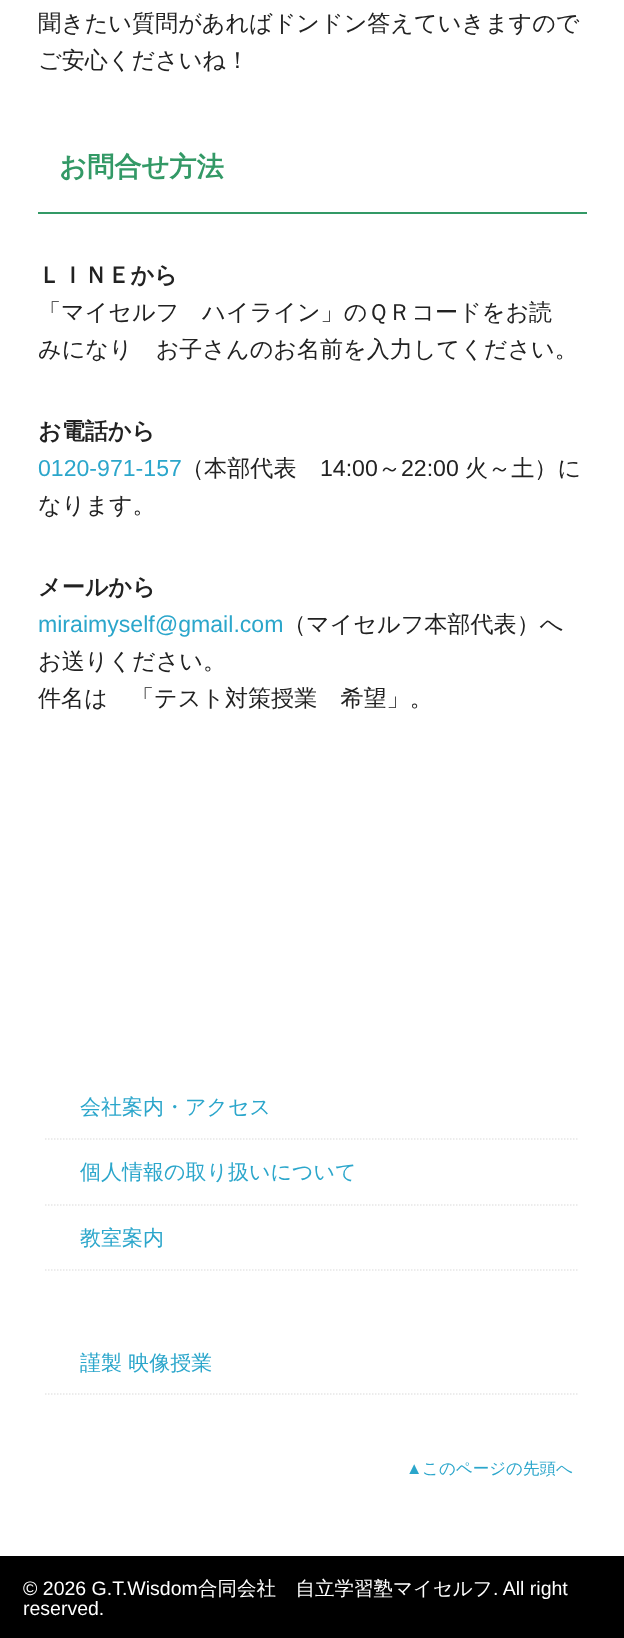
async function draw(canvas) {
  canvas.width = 624;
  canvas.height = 1638;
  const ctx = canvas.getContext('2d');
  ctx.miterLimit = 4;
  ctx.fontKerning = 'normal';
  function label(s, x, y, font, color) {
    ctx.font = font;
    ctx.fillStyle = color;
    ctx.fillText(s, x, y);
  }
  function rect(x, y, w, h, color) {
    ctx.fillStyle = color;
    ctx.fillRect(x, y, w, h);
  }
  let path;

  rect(0, 0, 624, 1638, '#fff');
  label('聞きたい質問があればドンドン答えていきますので', 38, 31, '500 23.1px WenQuanYi Zen Hei', '#222');
  label('ご安心くださいね！', 38, 68, '500 23.1px WenQuanYi Zen Hei', '#222');
  rect(38, 212, 549, 2, '#396');
  label('お問合せ方法', 59, 176, 'bold 27.25px WenQuanYi Zen Hei', '#396');
  label('ＬＩＮＥから', 38, 283, 'bold 23.1px WenQuanYi Zen Hei', '#222');
  label('「マイセルフ　ハイライン」のＱＲコードをお読', 38, 320, '500 23.1px WenQuanYi Zen Hei', '#222');
  label('みになり　お子さんのお名前を入力してください。', 38, 357, '500 23.1px WenQuanYi Zen Hei', '#222');
  label('お電話から', 38, 439, 'bold 23.1px WenQuanYi Zen Hei', '#222');
  label('0120-971-157', 38, 476, '23.1px Liberation Sans', '#2ba6cb');
  label('（本部代表', 181, 476, '500 23.1px WenQuanYi Zen Hei', '#222');
  label('14:00', 320, 476, '23.1px Liberation Sans', '#222');
  label('～', 378, 476, '500 23.1px WenQuanYi Zen Hei', '#222');
  label('22:00', 401, 476, '23.1px Liberation Sans', '#222');
  label('火～土）に', 465, 476, '500 23.1px WenQuanYi Zen Hei', '#222');
  label('なります。', 38, 513, '500 23.1px WenQuanYi Zen Hei', '#222');
  label('メールから', 38, 595, 'bold 23.1px WenQuanYi Zen Hei', '#222');
  label('miraimyself@gmail.com', 38, 632, '23.1px Liberation Sans', '#2ba6cb');
  label('（マイセルフ本部代表）へ', 283, 632, '500 23.1px WenQuanYi Zen Hei', '#222');
  label('お送りください。', 38, 669, '500 23.1px WenQuanYi Zen Hei', '#222');
  label('件名は　「テスト対策授業　希望」。', 38, 706, '500 23.1px WenQuanYi Zen Hei', '#222');
  path = new Path2D('M45 1139H579');
  ctx.strokeStyle = '#e6e6e6';
  ctx.lineWidth = 1.5;
  ctx.setLineDash([1.5, 1.5]);
  ctx.stroke(path);
  label('会社案内・アクセス', 80, 1114, '500 21px WenQuanYi Zen Hei', '#2ba6cb');
  path = new Path2D('M45 1205H579');
  ctx.stroke(path);
  label('個人情報の取り扱いについて', 80, 1179, '500 21px WenQuanYi Zen Hei', '#2ba6cb');
  path = new Path2D('M45 1270H579');
  ctx.stroke(path);
  label('教室案内', 80, 1245, '500 21px WenQuanYi Zen Hei', '#2ba6cb');
  path = new Path2D('M45 1394H579');
  ctx.stroke(path);
  label('謹製 映像授業', 80, 1370, '500 21px WenQuanYi Zen Hei', '#2ba6cb');
  label('▲', 406, 1474, '16.5px Liberation Sans', '#2ba6cb');
  label('このページの先頭へ', 422, 1474, '500 16.5px WenQuanYi Zen Hei', '#2ba6cb');
  rect(0, 1556, 624, 82, '#000');
  label('© 2026 G.T.Wisdom', 23, 1595, '19.5px Liberation Sans', '#fff');
  label('合同会社　自立学習塾マイセルフ', 198, 1595, '500 19.5px WenQuanYi Zen Hei', '#fff');
  label('. All right', 493, 1595, '19.5px Liberation Sans', '#fff');
  label('reserved.', 23, 1615, '19.5px Liberation Sans', '#fff');
}

draw(document.querySelector('canvas'));
